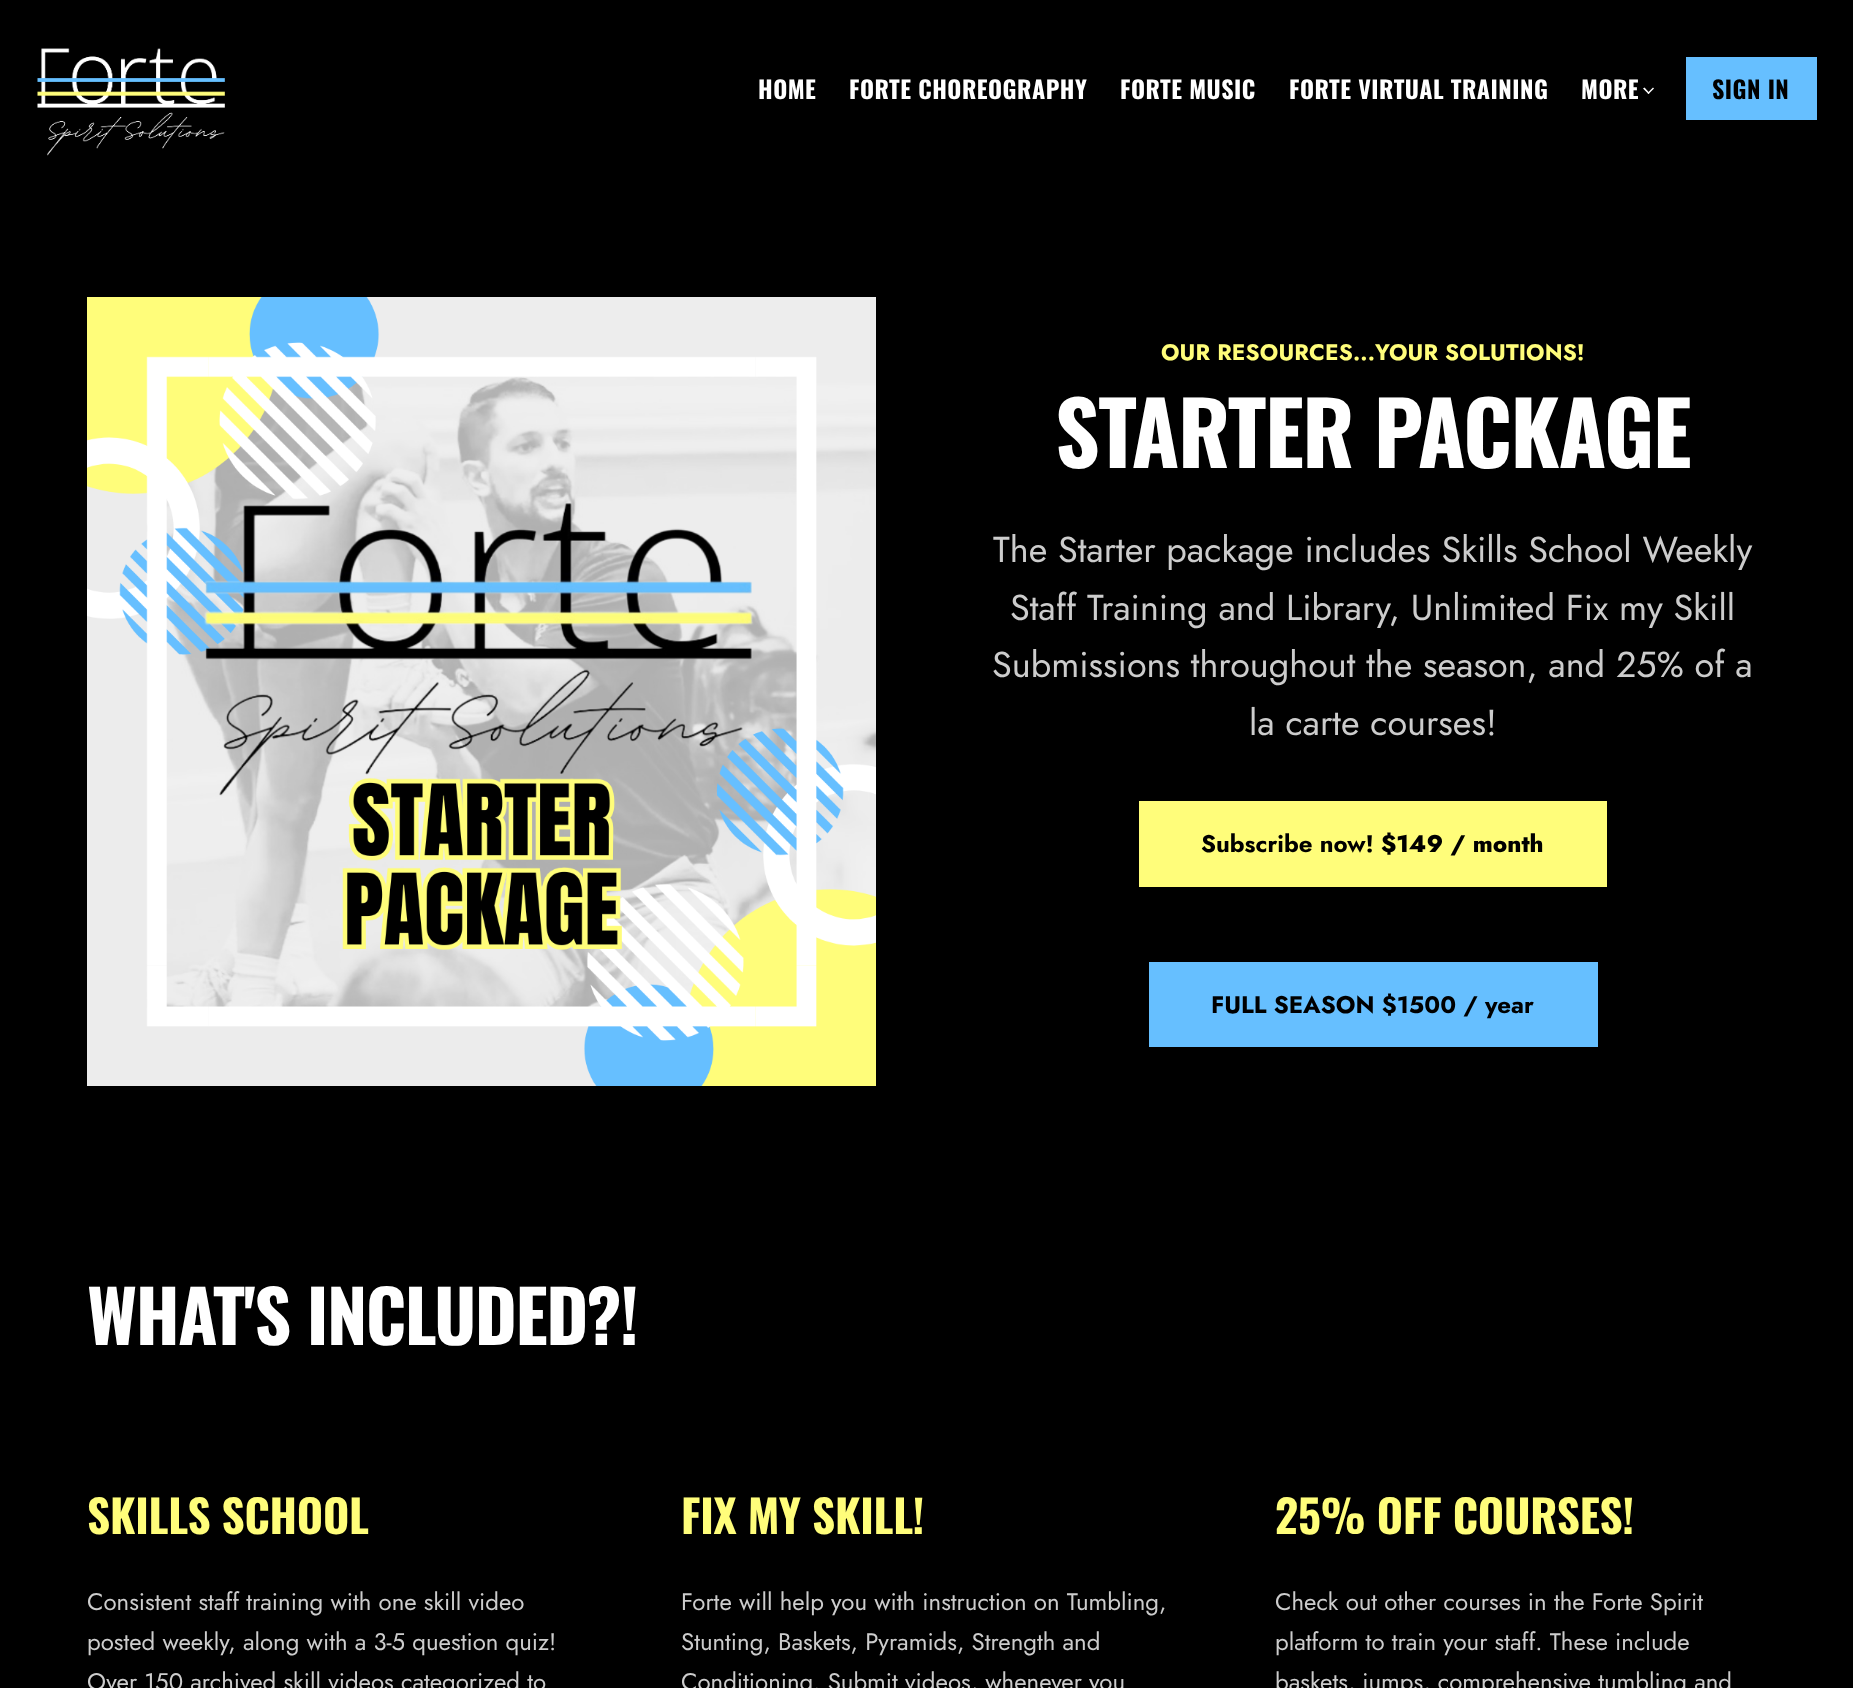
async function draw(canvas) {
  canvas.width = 1853;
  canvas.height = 1688;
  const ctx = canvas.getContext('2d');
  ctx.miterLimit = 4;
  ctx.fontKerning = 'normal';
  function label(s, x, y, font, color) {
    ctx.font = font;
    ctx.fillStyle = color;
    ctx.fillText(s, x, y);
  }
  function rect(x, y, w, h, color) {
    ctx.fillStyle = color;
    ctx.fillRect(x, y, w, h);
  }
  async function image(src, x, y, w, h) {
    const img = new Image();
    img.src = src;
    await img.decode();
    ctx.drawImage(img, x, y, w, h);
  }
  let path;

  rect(0, 0, 1853, 1688, '#000');
  await image('assets/img1.png', 37, 48, 188, 108);
  ctx.letterSpacing = '0.5px';
  label('HOME', 758, 99, 'bold 24px Oswald', '#fff');
  label('FORTE CHOREOGRAPHY', 849, 99, 'bold 24px Oswald', '#fff');
  label('FORTE MUSIC', 1120, 99, 'bold 24px Oswald', '#fff');
  label('FORTE VIRTUAL TRAINING', 1289, 99, 'bold 24px Oswald', '#fff');
  label('MORE', 1581, 99, 'bold 24px Oswald', '#fff');
  path = new Path2D('M1654 88.5L1648.5 94L1647.5 93L1653 87.5Z');
  ctx.fill(path);
  path = new Path2D('M1649.5 93L1648.5 94L1643 88.5L1644.5 87.5Z');
  ctx.fill(path);
  rect(1686, 57, 131, 63, '#66bfff');
  label('SIGN IN', 1712, 99, 'bold 24px Oswald', '#000');
  await image('assets/img2.png', 87, 297, 789, 789);
  ctx.letterSpacing = '0.15px';
  label('OUR RESOURCES...YOUR SOLUTIONS!', 1161, 360, 'bold 22.5px Jost', '#fffd7a');
  ctx.letterSpacing = '-1.5px';
  label('STARTER PACKAGE', 1055, 468, 'bold 87px Oswald', '#fff');
  ctx.letterSpacing = '0px';
  label('The Starter package includes Skills School Weekly', 993, 562, '36px Jost', '#ccc');
  label('Staff Training and Library, Unlimited Fix my Skill', 1010, 620, '36px Jost', '#ccc');
  label('Submissions throughout the season, and 25% of a', 992, 677, '36px Jost', '#ccc');
  label('la carte courses!', 1249, 735, '36px Jost', '#ccc');
  rect(1139, 801, 468, 86, '#fffd7a');
  label('Subscribe now!', 1201, 852, 'bold 24px Jost', '#000');
  label('$149 / month', 1381, 852, '800 24px Jost', '#000');
  rect(1149, 962, 449, 85, '#66bfff');
  label('FULL SEASON $1500 / year', 1211, 1013, 'bold 24px Jost', '#000');
  ctx.letterSpacing = '-1.5px';
  label('WHAT\'S INCLUDED?!', 87, 1345, 'bold 72px Oswald', '#fff');
  ctx.letterSpacing = '-0.25px';
  label('SKILLS SCHOOL', 87, 1534, 'bold 45px Oswald', '#fffd7a');
  ctx.letterSpacing = '0px';
  label('Consistent staff training with one skill video', 87, 1610, '24px Jost', '#ccc');
  label('posted weekly, along with a 3-5 question quiz!', 87, 1650, '24px Jost', '#ccc');
  label('Over 150 archived skill videos categorized to', 87, 1690, '24px Jost', '#ccc');
  ctx.letterSpacing = '-0.25px';
  label('FIX MY SKILL!', 681, 1534, 'bold 45px Oswald', '#fffd7a');
  ctx.letterSpacing = '0px';
  label('Forte will help you with instruction on Tumbling,', 681, 1610, '24px Jost', '#ccc');
  label('Stunting, Baskets, Pyramids, Strength and', 681, 1650, '24px Jost', '#ccc');
  label('Conditioning. Submit videos, whenever you', 681, 1690, '24px Jost', '#ccc');
  ctx.letterSpacing = '-0.25px';
  label('25% OFF COURSES!', 1275, 1534, 'bold 45px Oswald', '#fffd7a');
  ctx.letterSpacing = '0px';
  label('Check out other courses in the Forte Spirit', 1275, 1610, '24px Jost', '#ccc');
  label('platform to train your staff. These include', 1275, 1650, '24px Jost', '#ccc');
  label('baskets, jumps, comprehensive tumbling and', 1275, 1690, '24px Jost', '#ccc');
}

draw(document.querySelector('canvas'));
